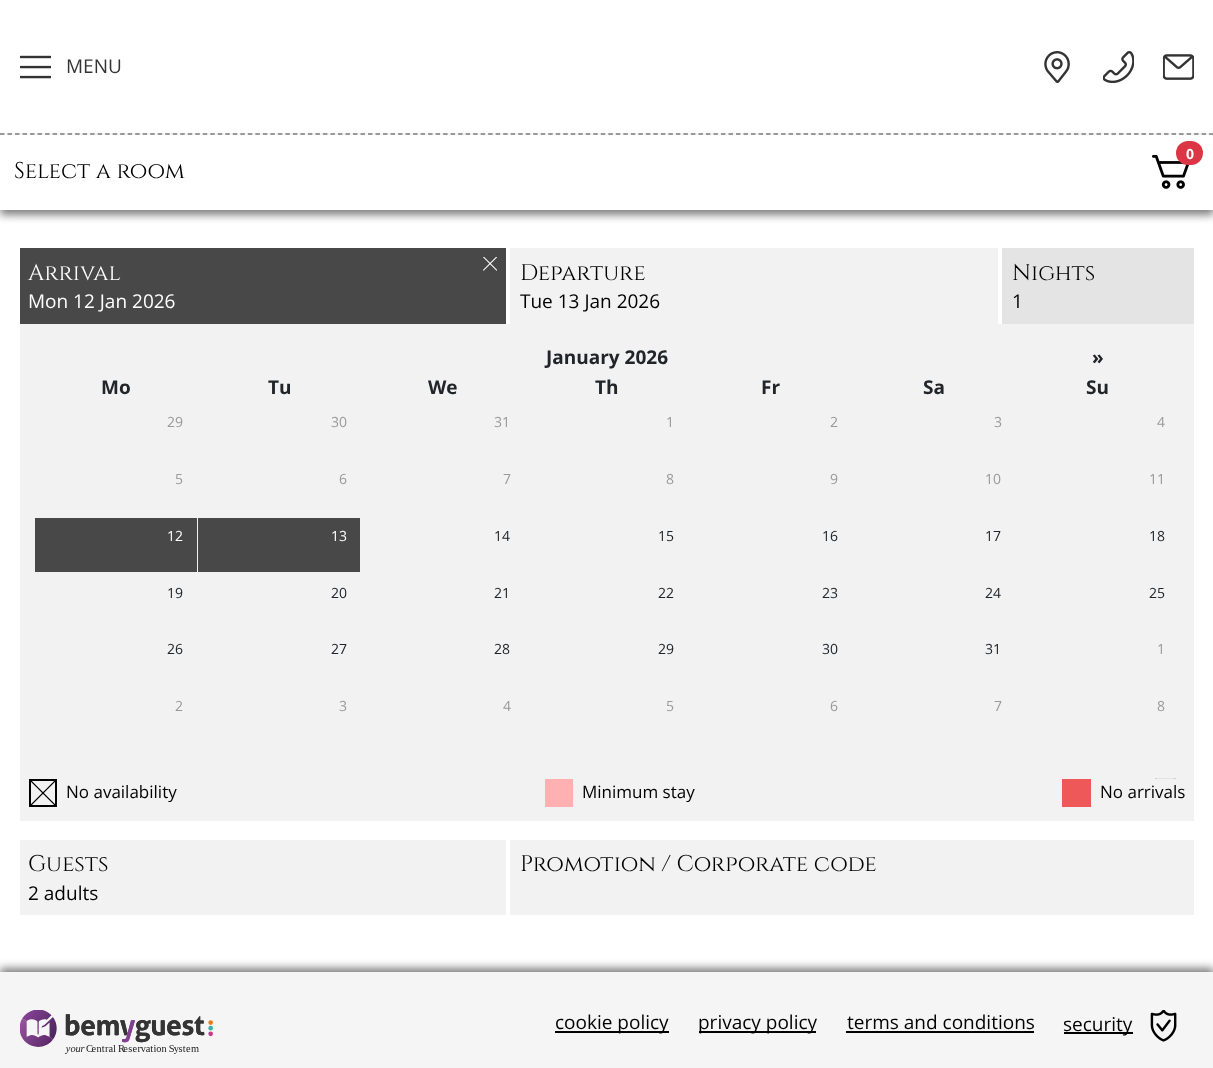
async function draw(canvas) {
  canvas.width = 1213;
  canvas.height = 1068;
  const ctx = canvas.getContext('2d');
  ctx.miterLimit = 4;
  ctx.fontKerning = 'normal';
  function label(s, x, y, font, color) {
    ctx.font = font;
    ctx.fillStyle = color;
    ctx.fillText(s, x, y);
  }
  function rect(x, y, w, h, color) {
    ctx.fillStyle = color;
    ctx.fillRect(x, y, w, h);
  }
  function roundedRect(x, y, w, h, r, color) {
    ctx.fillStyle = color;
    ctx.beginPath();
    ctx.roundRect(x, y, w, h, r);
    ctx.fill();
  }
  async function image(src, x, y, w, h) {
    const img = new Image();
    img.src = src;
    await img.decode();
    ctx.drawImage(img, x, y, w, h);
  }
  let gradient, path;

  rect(0, 0, 1213, 1068, '#fff');
  path = new Path2D('M0 134H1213.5');
  ctx.strokeStyle = '#808084';
  ctx.lineWidth = 1.5;
  ctx.setLineDash([4.5, 3.01]);
  ctx.stroke(path);
  await image('assets/img1.png', 20, 55, 31, 24);
  label('MENU', 66, 73, '19px Open Sans', '#333');
  await image('assets/img2.png', 1044, 51, 26, 32);
  await image('assets/img3.png', 1103, 51, 31, 32);
  await image('assets/img4.png', 1163, 54, 31, 26);
  ctx.save();
  path = new Path2D('M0 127H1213V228H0ZM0 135H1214V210H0Z');
  ctx.clip(path, 'evenodd');
  ctx.fillStyle = '#00000080';
  ctx.filter = 'blur(4px)';
  ctx.beginPath();
  ctx.rect(0, 140, 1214, 75);
  ctx.fill();
  ctx.filter = 'none';
  ctx.restore();
  await image('assets/img5.png', 1152, 154, 37, 35);
  roundedRect(1176, 141, 27, 24, 12, '#dc3545');
  label('0', 1186, 159, 'bold 14px Open Sans', '#fff');
  label('Select a room', 14, 178, '22.7px Cinzel', '#000');
  rect(20, 248, 486, 76, '#484848');
  label('Arrival', 28, 280, '22.7px Cinzel', '#fff');
  await image('assets/img6.png', 483, 257, 14, 14);
  label('Mon 12 Jan 2026', 28, 308, '19px Open Sans', '#fff');
  rect(510, 248, 488, 76, '#f2f2f2');
  label('Departure', 520, 280, '22.7px Cinzel', '#000');
  label('Tue 13 Jan 2026', 520, 308, '19px Open Sans', '#000');
  rect(1002, 248, 192, 76, '#e4e4e4');
  label('Nights', 1012, 280, '22.7px Cinzel', '#000');
  label('1', 1012, 308, '19px Open Sans', '#000');
  rect(20, 324, 1174, 497, '#f2f2f2');
  label('January 2026', 546, 364, 'bold 19px Open Sans', '#212529');
  label('»', 1092, 364, 'bold 19px Open Sans', '#212529');
  label('Mo', 101, 394, 'bold 19px Open Sans', '#212529');
  label('Tu', 268, 394, 'bold 19px Open Sans', '#212529');
  label('We', 428, 394, 'bold 19px Open Sans', '#212529');
  label('Th', 595, 394, 'bold 19px Open Sans', '#212529');
  label('Fr', 761, 394, 'bold 19px Open Sans', '#212529');
  label('Sa', 923, 394, 'bold 19px Open Sans', '#212529');
  label('Su', 1086, 394, 'bold 19px Open Sans', '#212529');
  label('29', 167, 427, '14px Open Sans', '#999');
  label('30', 331, 427, '14px Open Sans', '#999');
  label('31', 494, 427, '14px Open Sans', '#999');
  label('1', 666, 427, '14px Open Sans', '#999');
  label('2', 830, 427, '14px Open Sans', '#999');
  label('3', 994, 427, '14px Open Sans', '#999');
  label('4', 1157, 427, '14px Open Sans', '#999');
  label('5', 175, 484, '14px Open Sans', '#999');
  label('6', 339, 484, '14px Open Sans', '#999');
  label('7', 503, 484, '14px Open Sans', '#999');
  label('8', 666, 484, '14px Open Sans', '#999');
  label('9', 830, 484, '14px Open Sans', '#999');
  label('10', 985, 484, '14px Open Sans', '#999');
  label('11', 1149, 484, '14px Open Sans', '#999');
  rect(35, 518, 162, 54, '#484848');
  label('12', 167, 541, '14px Open Sans', '#fff');
  rect(198, 518, 162, 54, '#484848');
  label('13', 331, 541, '14px Open Sans', '#fff');
  label('14', 494, 541, '14px Open Sans', '#212529');
  label('15', 658, 541, '14px Open Sans', '#212529');
  label('16', 822, 541, '14px Open Sans', '#212529');
  label('17', 985, 541, '14px Open Sans', '#212529');
  label('18', 1149, 541, '14px Open Sans', '#212529');
  label('19', 167, 598, '14px Open Sans', '#212529');
  label('20', 331, 598, '14px Open Sans', '#212529');
  label('21', 494, 598, '14px Open Sans', '#212529');
  label('22', 658, 598, '14px Open Sans', '#212529');
  label('23', 822, 598, '14px Open Sans', '#212529');
  label('24', 985, 598, '14px Open Sans', '#212529');
  label('25', 1149, 598, '14px Open Sans', '#212529');
  label('26', 167, 654, '14px Open Sans', '#212529');
  label('27', 331, 654, '14px Open Sans', '#212529');
  label('28', 494, 654, '14px Open Sans', '#212529');
  label('29', 658, 654, '14px Open Sans', '#212529');
  label('30', 822, 654, '14px Open Sans', '#212529');
  label('31', 985, 654, '14px Open Sans', '#212529');
  label('1', 1157, 654, '14px Open Sans', '#999');
  label('2', 175, 711, '14px Open Sans', '#999');
  label('3', 339, 711, '14px Open Sans', '#999');
  label('4', 503, 711, '14px Open Sans', '#999');
  label('5', 666, 711, '14px Open Sans', '#999');
  label('6', 830, 711, '14px Open Sans', '#999');
  label('7', 994, 711, '14px Open Sans', '#999');
  label('8', 1157, 711, '14px Open Sans', '#999');
  ctx.save();
  ctx.beginPath();
  ctx.rect(29, 338, 1156, 441);
  ctx.clip();
  path = new Path2D('M1155 778.5H1176L1165.5 789Z');
  ctx.fill(path);
  ctx.fillStyle = '#fff';
  path = new Path2D('M1156.5 778.5H1174.5L1165.5 787.5Z');
  ctx.fill(path);
  ctx.restore();
  ctx.strokeStyle = '#000';
  ctx.lineWidth = 2;
  ctx.setLineDash([]);
  ctx.strokeRect(30, 780, 26, 26);
  gradient = ctx.createLinearGradient(30, 806, 56, 780);
  gradient.addColorStop(0, '#00000000');
  gradient.addColorStop(0.47, '#00000000');
  gradient.addColorStop(0.5, '#000');
  gradient.addColorStop(0.53, '#00000000');
  gradient.addColorStop(1, '#00000000');
  ctx.fillStyle = gradient;
  ctx.fillRect(31, 781, 24, 24);
  gradient = ctx.createLinearGradient(56, 806, 30, 780);
  gradient.addColorStop(0, '#00000000');
  gradient.addColorStop(0.47, '#00000000');
  gradient.addColorStop(0.5, '#000');
  gradient.addColorStop(0.53, '#00000000');
  gradient.addColorStop(1, '#00000000');
  ctx.fillStyle = gradient;
  ctx.fillRect(31, 781, 24, 24);
  label('No availability', 66, 798, '17px Open Sans', '#000');
  rect(545, 779, 28, 28, '#ffb0b0');
  label('Minimum stay', 582, 798, '17px Open Sans', '#000');
  rect(1062, 779, 29, 28, '#ef5858');
  label('No arrivals', 1100, 798, '17px Open Sans', '#000');
  rect(20, 840, 486, 75, '#f2f2f2');
  label('Guests', 28, 871, '22.7px Cinzel', '#000');
  label('2 adults', 28, 900, '19px Open Sans', '#000');
  rect(510, 840, 684, 75, '#f2f2f2');
  label('Promotion / Corporate code', 520, 871, '22.7px Cinzel', '#000');
  ctx.fillStyle = '#00000080';
  ctx.filter = 'blur(4px)';
  ctx.beginPath();
  ctx.rect(0, 968, 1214, 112);
  ctx.fill();
  ctx.filter = 'none';
  rect(0, 972, 1213, 96, '#f5f5f5');
  await image('assets/img7.png', 20, 1010, 193, 44);
  rect(555, 1031, 114, 2, '#000');
  label('cookie policy', 555, 1029, '19px Open Sans', '#000');
  rect(699, 1031, 117, 2, '#000');
  label('privacy policy', 698, 1029, '19px Open Sans', '#000');
  label('terms and conditions', 847, 1029, '19px Open Sans', '#000');
  rect(846, 1031, 188, 2, '#000');
  rect(1064, 1032, 69, 2, '#000');
  label('security', 1063, 1031, '19px Open Sans', '#000');
  await image('assets/img8.png', 1150, 1010, 27, 32);
}

draw(document.querySelector('canvas'));
